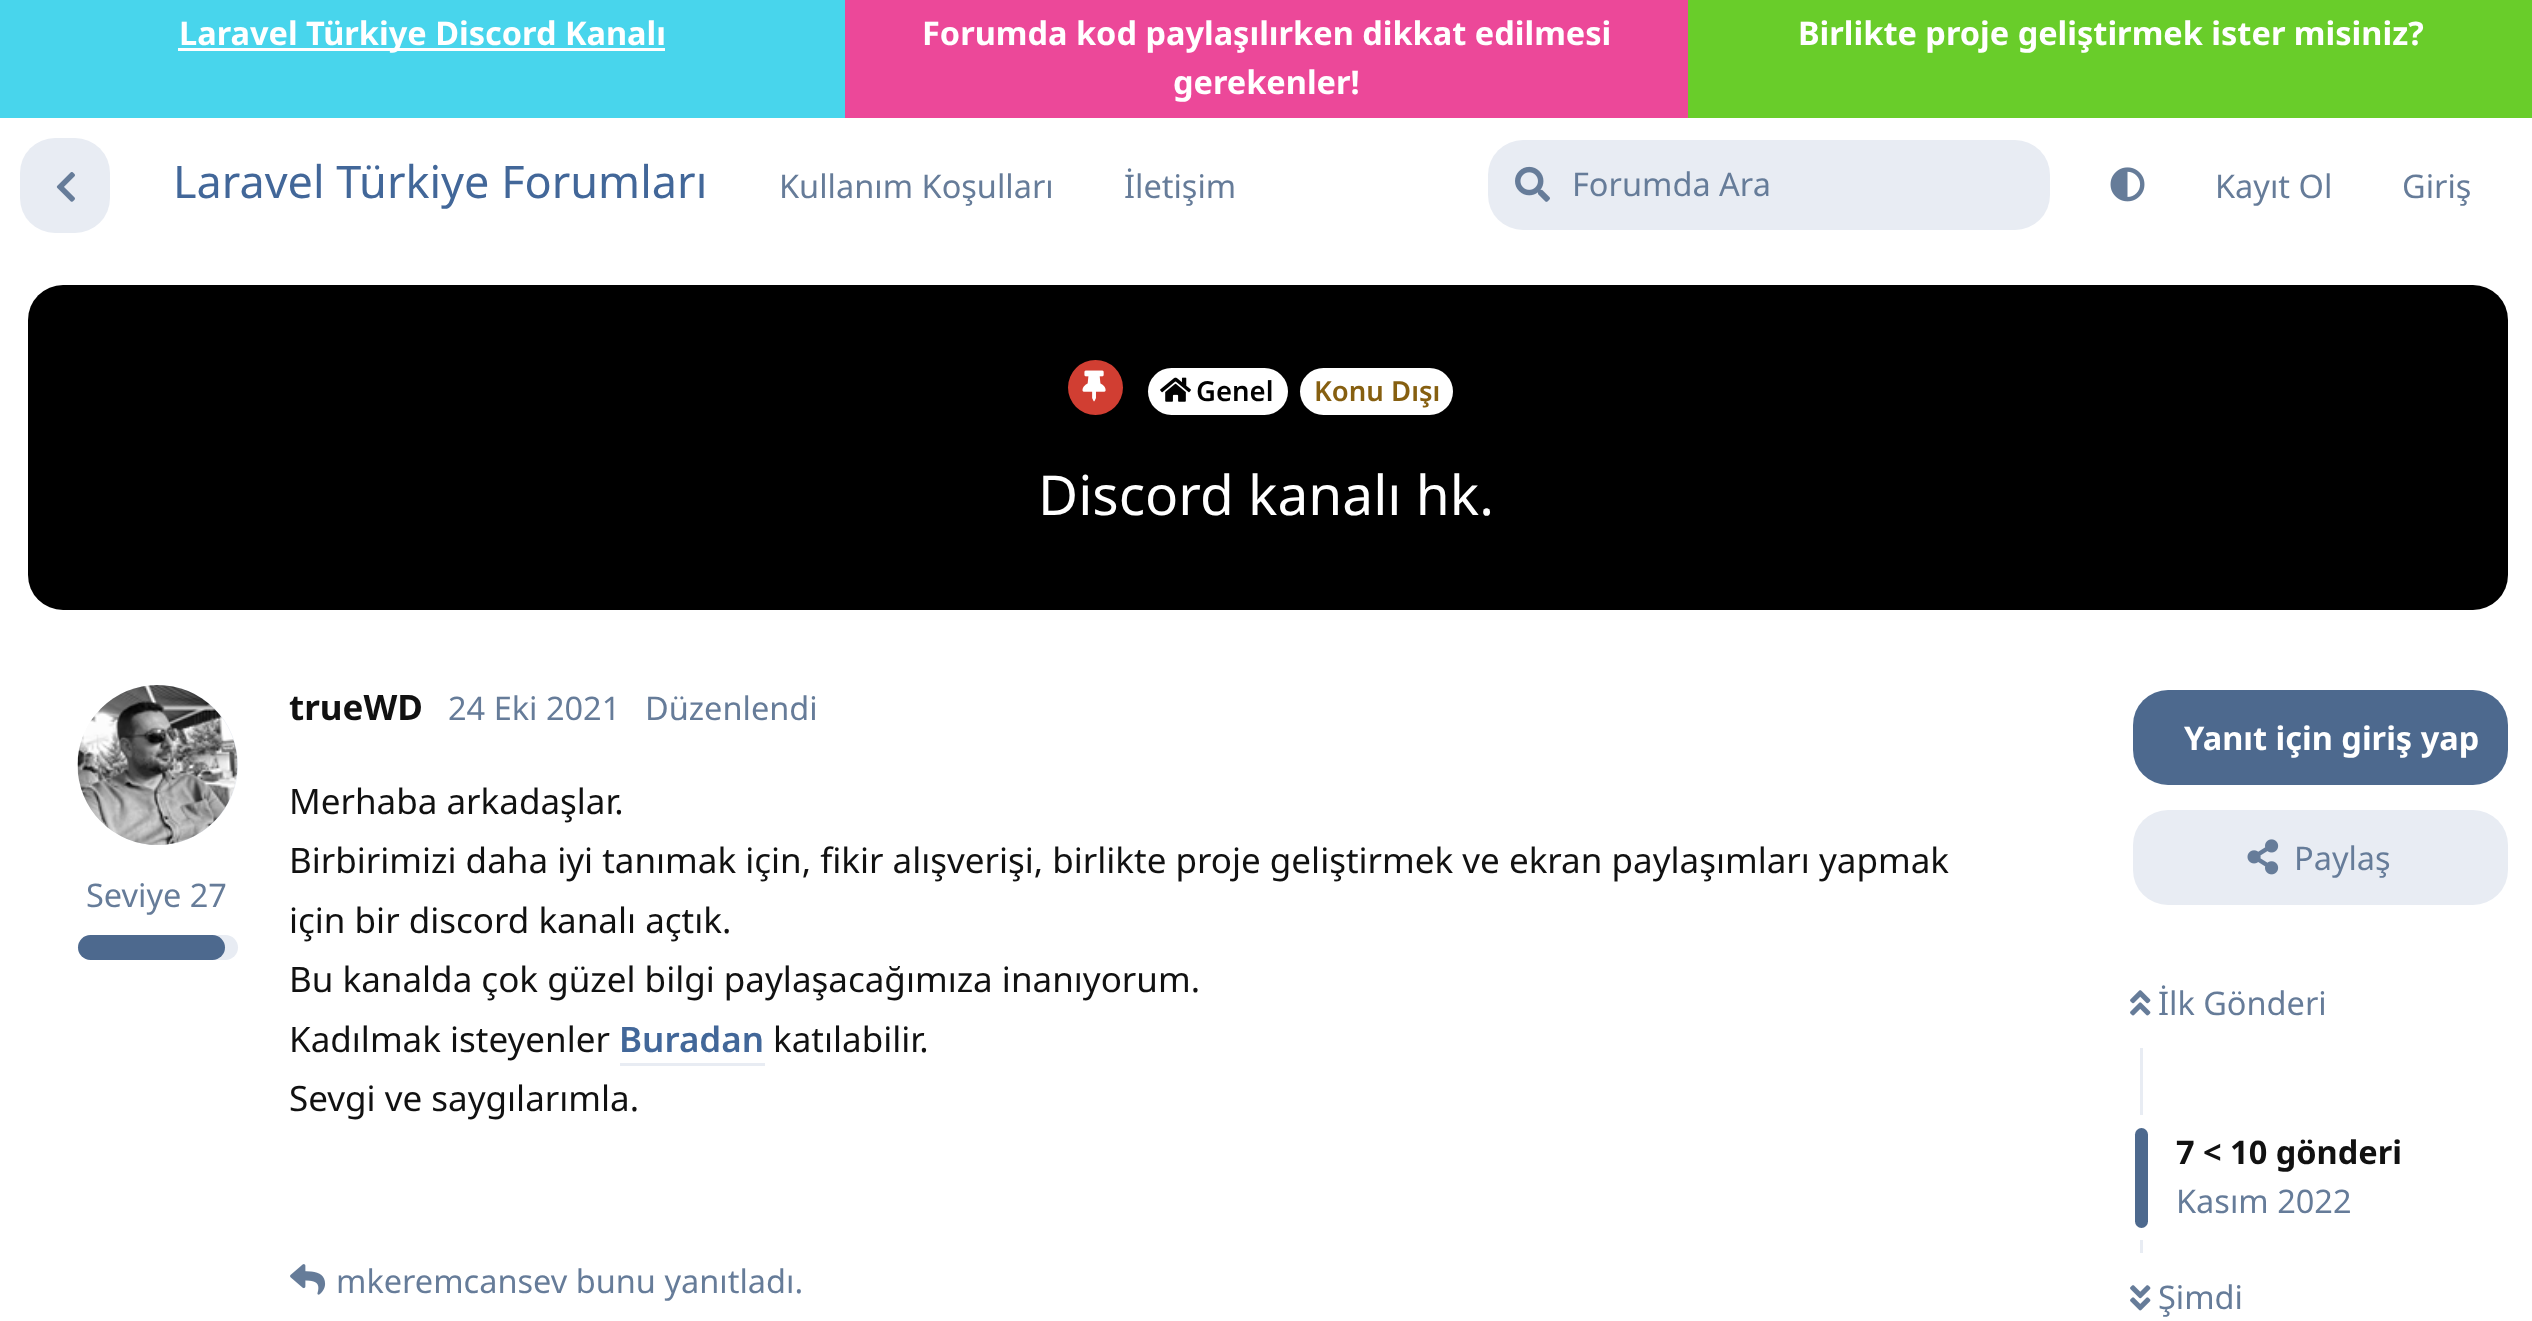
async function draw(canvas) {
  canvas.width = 2532;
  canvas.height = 1321;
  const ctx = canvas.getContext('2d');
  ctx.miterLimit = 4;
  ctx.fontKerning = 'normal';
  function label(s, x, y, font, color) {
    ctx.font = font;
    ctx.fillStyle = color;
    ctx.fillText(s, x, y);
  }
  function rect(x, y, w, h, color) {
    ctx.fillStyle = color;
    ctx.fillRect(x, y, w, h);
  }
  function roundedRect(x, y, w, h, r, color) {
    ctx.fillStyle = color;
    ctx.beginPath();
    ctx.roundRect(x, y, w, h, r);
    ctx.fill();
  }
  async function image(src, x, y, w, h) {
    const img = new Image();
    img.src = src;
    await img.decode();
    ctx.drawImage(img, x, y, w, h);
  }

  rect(0, 0, 2532, 1321, '#fff');
  rect(0, 0, 845, 118, '#48d5ec');
  rect(178, 48, 487, 3, '#fff');
  label('Laravel Türkiye Discord Kanalı', 179, 45, 'bold 32.5px Noto Sans', '#fff');
  rect(845, 0, 843, 118, '#ec4899');
  label('Forumda kod paylaşılırken dikkat edilmesi', 922, 45, 'bold 32.5px Noto Sans', '#fff');
  label('gerekenler!', 1173, 94, 'bold 32.5px Noto Sans', '#fff');
  rect(1688, 0, 844, 118, '#69cd2a');
  label('Birlikte proje geliştirmek ister misiniz?', 1798, 45, 'bold 32.5px Noto Sans', '#fff');
  roundedRect(20, 138, 90, 95, 35, '#e8ecf3');
  await image('assets/img1.png', 56, 172, 19, 30);
  label('Laravel Türkiye Forumları', 173, 198, '45px Noto Sans', '#426799');
  label('Kullanım Koşulları', 779, 198, '32.5px Noto Sans', '#667c99');
  label('İletişim', 1124, 198, '32.5px Noto Sans', '#667c99');
  roundedRect(1488, 140, 562, 90, 35, '#e8ecf3');
  await image('assets/img2.png', 1515, 166, 35, 36);
  label('Forumda Ara', 1572, 196, '32.5px Noto Sans', '#667c99');
  await image('assets/img3.png', 2110, 167, 35, 35);
  label('Kayıt Ol', 2215, 198, '32.5px Noto Sans', '#667c99');
  label('Giriş', 2402, 198, '32.5px Noto Sans', '#667c99');
  roundedRect(28, 285, 2480, 325, 35, '#000');
  ctx.fillStyle = '#d13e32';
  ctx.beginPath();
  ctx.arc(1095.5, 387.5, 27.5, 0, 2 * Math.PI);
  ctx.fill();
  await image('assets/img4.png', 1082, 370, 24, 32);
  roundedRect(1148, 368, 140, 47, 23.5, '#fff');
  await image('assets/img5.png', 1160, 377, 31, 25);
  label('Genel', 1196, 401, '600 27.5px Noto Sans', '#000');
  roundedRect(1300, 368, 153, 47, 23.5, '#fff');
  label('Konu Dışı', 1314, 401, '600 27.5px Noto Sans', '#865f10');
  label('Discord kanalı hk.', 1038, 515, '55px Noto Sans', '#fff');
  ctx.fillStyle = '#e8ecf3';
  ctx.beginPath();
  ctx.arc(158, 765, 80, 0, 2 * Math.PI);
  ctx.fill();
  await image('assets/img6.png', 77, 685, 161, 160);
  label('trueWD', 289, 720, 'bold 35px Noto Sans', '#111');
  label('Seviye 27', 86, 907, '32.5px Noto Sans', '#667c99');
  roundedRect(78, 935, 160, 25, 12.5, '#e8ecf3');
  roundedRect(78, 935, 147, 25, 12.5, '#4d698e');
  label('24 Eki 2021', 448, 720, '32.5px Noto Sans', '#667c99');
  label('Düzenlendi', 645, 720, '32.5px Noto Sans', '#667c99');
  label('Merhaba arkadaşlar.', 289, 814, '35px Noto Sans', '#111');
  label('Birbirimizi daha iyi tanımak için, fikir alışverişi, birlikte proje geliştirmek ve ekran paylaşımları yapmak', 289, 873, '35px Noto Sans', '#111');
  label('için bir discord kanalı açtık.', 289, 933, '35px Noto Sans', '#111');
  label('Bu kanalda çok güzel bilgi paylaşacağımıza inanıyorum.', 289, 992, '35px Noto Sans', '#111');
  label('Kadılmak isteyenler', 289, 1052, '35px Noto Sans', '#111');
  label('Buradan', 619, 1052, '600 35px Noto Sans', '#426799');
  rect(620, 1063, 145, 3, '#e8ecf3');
  label('katılabilir.', 773, 1052, '35px Noto Sans', '#111');
  label('Sevgi ve saygılarımla.', 289, 1111, '35px Noto Sans', '#111');
  await image('assets/img7.png', 290, 1264, 36, 31);
  label('mkeremcansev bunu yanıtladı.', 336, 1293, '32.5px Noto Sans', '#667c99');
  roundedRect(2133, 690, 375, 95, 35, '#4d698e');
  label('Yanıt için giriş yap', 2184, 750, 'bold 32.5px Noto Sans', '#fff');
  roundedRect(2133, 810, 375, 95, 35, '#e8ecf3');
  await image('assets/img8.png', 2247, 839, 32, 36);
  label('Paylaş', 2294, 870, '32.5px Noto Sans', '#667c99');
  await image('assets/img9.png', 2130, 990, 21, 26);
  label('İlk Gönderi', 2158, 1015, '32.5px Noto Sans', '#667c99');
  rect(2140, 1048, 3, 67, '#e8ecf3');
  roundedRect(2135, 1128, 13, 100, 6.5, '#4d698e');
  label('7 < 10 gönderi', 2176, 1164, 'bold 32.5px Noto Sans', '#111');
  label('Kasım 2022', 2176, 1213, '32.5px Noto Sans', '#667c99');
  rect(2140, 1240, 3, 13, '#e8ecf3');
  await image('assets/img10.png', 2130, 1285, 21, 26);
  label('Şimdi', 2158, 1309, '32.5px Noto Sans', '#667c99');
}

draw(document.querySelector('canvas'));
